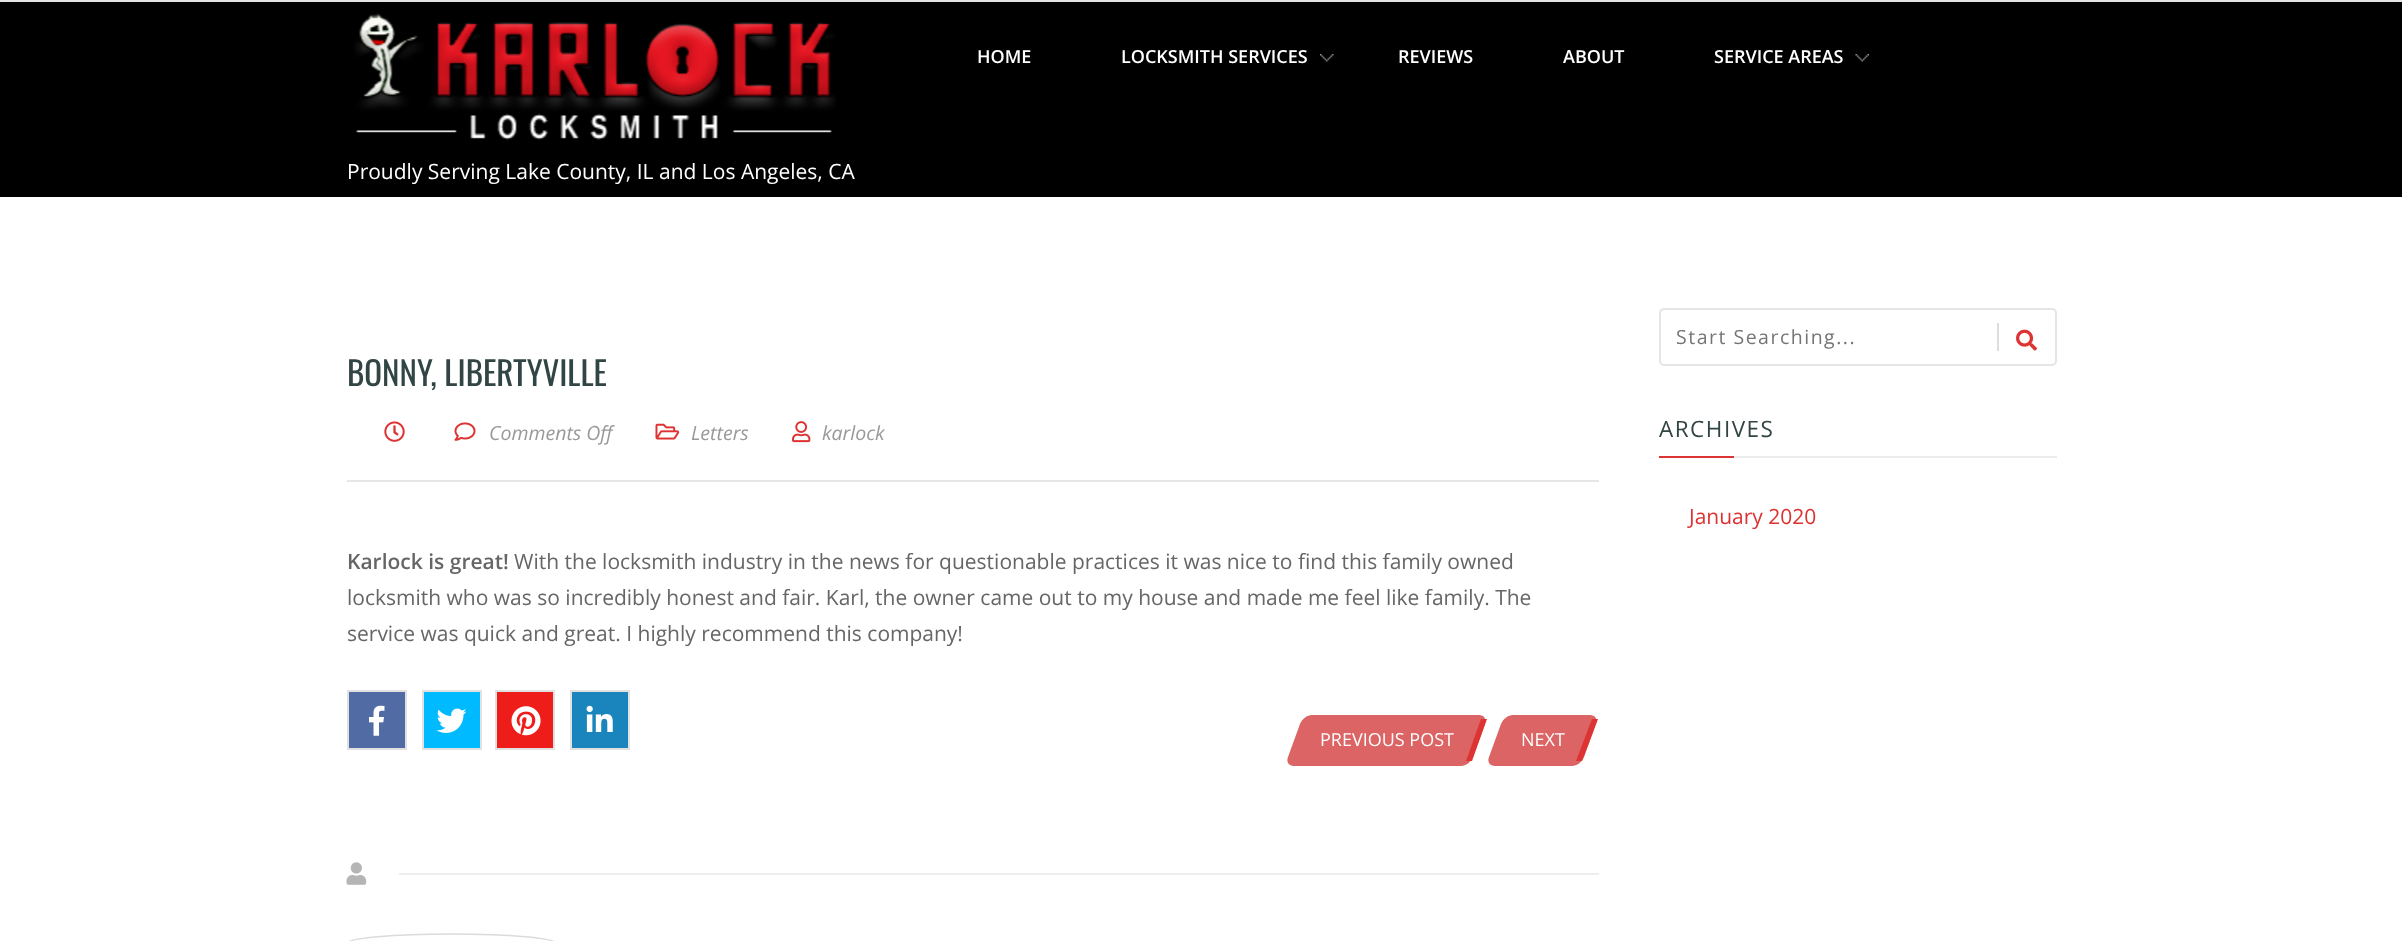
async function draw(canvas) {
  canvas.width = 2402;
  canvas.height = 941;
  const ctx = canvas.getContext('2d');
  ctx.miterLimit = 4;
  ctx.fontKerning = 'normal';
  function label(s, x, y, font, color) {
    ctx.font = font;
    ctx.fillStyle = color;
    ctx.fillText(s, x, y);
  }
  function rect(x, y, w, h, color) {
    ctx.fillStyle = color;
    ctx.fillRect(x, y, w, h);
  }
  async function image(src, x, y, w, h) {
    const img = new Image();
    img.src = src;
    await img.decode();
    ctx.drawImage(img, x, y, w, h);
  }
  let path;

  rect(0, 0, 2402, 941, '#fff');
  rect(0, 0, 2402, 2, '#e4e4e4');
  rect(0, 2, 2402, 195, '#000');
  label('HOME', 977, 63, '600 18px Open Sans', '#fff');
  label('LOCKSMITH SERVICES', 1121, 63, '600 18px Open Sans', '#fff');
  await image('assets/img1.png', 1320, 54, 14, 8);
  label('REVIEWS', 1398, 63, '600 18px Open Sans', '#fff');
  label('ABOUT', 1563, 63, '600 18px Open Sans', '#fff');
  label('SERVICE AREAS', 1714, 63, '600 18px Open Sans', '#fff');
  await image('assets/img2.png', 1855, 54, 14, 8);
  await image('assets/img3.png', 354, 13, 482, 127);
  label('Proudly Serving Lake County, IL and Los Angeles, CA', 347, 179, '21px Open Sans', '#fff');
  label('BONNY, LIBERTYVILLE', 347, 386, '33px Oswald', '#324545');
  rect(347, 480, 1252, 2, '#e6e6e6');
  await image('assets/img4.png', 384, 421, 21, 21);
  await image('assets/img5.png', 454, 422, 22, 19);
  label('Comments Off', 489, 440, 'italic 19.5px Open Sans', '#999');
  await image('assets/img6.png', 655, 423, 25, 17);
  label('Letters', 691, 440, 'italic 19.5px Open Sans', '#999');
  await image('assets/img7.png', 792, 421, 19, 22);
  label('karlock', 822, 440, 'italic 19.5px Open Sans', '#999');
  label('Karlock is great!', 347, 569, '600 21px Open Sans', '#666');
  label('With the locksmith industry in the news for questionable practices it was nice to find this family owned', 514, 569, '21px Open Sans', '#666');
  label('locksmith who was so incredibly honest and fair. Karl, the owner came out to my house and made me feel like family. The', 347, 605, '21px Open Sans', '#666');
  label('service was quick and great. I highly recommend this company!', 347, 641, '21px Open Sans', '#666');
  ctx.fillStyle = '#516ca4';
  ctx.beginPath();
  ctx.rect(348, 691, 58, 58);
  ctx.fill();
  ctx.strokeStyle = '#e1e1e1';
  ctx.lineWidth = 2;
  ctx.stroke();
  await image('assets/img8.png', 369, 705, 16, 31);
  ctx.fillStyle = '#00baff';
  ctx.beginPath();
  ctx.rect(423, 691, 58, 58);
  ctx.fill();
  ctx.stroke();
  await image('assets/img9.png', 436, 708, 31, 25);
  ctx.fillStyle = '#ee1d19';
  ctx.beginPath();
  ctx.rect(496, 691, 58, 58);
  ctx.fill();
  ctx.stroke();
  await image('assets/img10.png', 511, 706, 30, 30);
  ctx.fillStyle = '#1985bc';
  ctx.beginPath();
  ctx.rect(571, 691, 58, 58);
  ctx.fill();
  ctx.stroke();
  await image('assets/img11.png', 586, 705, 27, 27);
  ctx.fillStyle = '#dc6464';
  path = new Path2D('M1312 715H1479C1484 715 1487 719 1485 724L1473 757C1471 762 1466 766 1461 766H1294C1289 766 1286 762 1288 757L1300 724C1302 719 1307 715 1312 715Z');
  ctx.fill(path);
  ctx.fillStyle = '#d33';
  path = new Path2D('M1481 719H1487L1472 761H1466Z');
  ctx.fill(path);
  label('PREVIOUS POST', 1320, 746, '18px Open Sans', '#fff');
  ctx.fillStyle = '#dc6464';
  path = new Path2D('M1513 715H1590C1595 715 1598 719 1596 724L1584 757C1582 762 1577 766 1572 766H1495C1490 766 1487 762 1489 757L1501 724C1503 719 1508 715 1513 715Z');
  ctx.fill(path);
  ctx.fillStyle = '#d33';
  path = new Path2D('M1592 719H1598L1582 761H1576Z');
  ctx.fill(path);
  label('NEXT', 1521, 746, '18px Open Sans', '#fff');
  await image('assets/img12.png', 346, 862, 21, 23);
  rect(399, 873, 1200, 2, '#eee');
  path = new Path2D('M451.5 934C509 934 556 938 556 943.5C556 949 509 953 451.5 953C394 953 347 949 347 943.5C347 938 394 934 451.5 934Z');
  ctx.strokeStyle = '#dadbdb';
  ctx.lineWidth = 1.5;
  ctx.stroke(path);
  ctx.beginPath();
  ctx.roundRect(1660, 309, 396, 56, 4);
  ctx.strokeStyle = '#e5e5e5';
  ctx.lineWidth = 2;
  ctx.stroke();
  ctx.letterSpacing = '1.5px';
  label('Start Searching...', 1676, 344, '19.5px Open Sans', '#757575');
  rect(1997, 323, 2, 28, '#ddd');
  await image('assets/img13.png', 2016, 329, 21, 22);
  label('ARCHIVES', 1659, 437, '22.5px Open Sans', '#324545');
  rect(1659, 456, 75, 2, '#d33');
  rect(1734, 456, 323, 2, '#ececec');
  ctx.letterSpacing = '0px';
  label('January 2020', 1689, 524, '21px Open Sans', '#d33');
}

draw(document.querySelector('canvas'));
